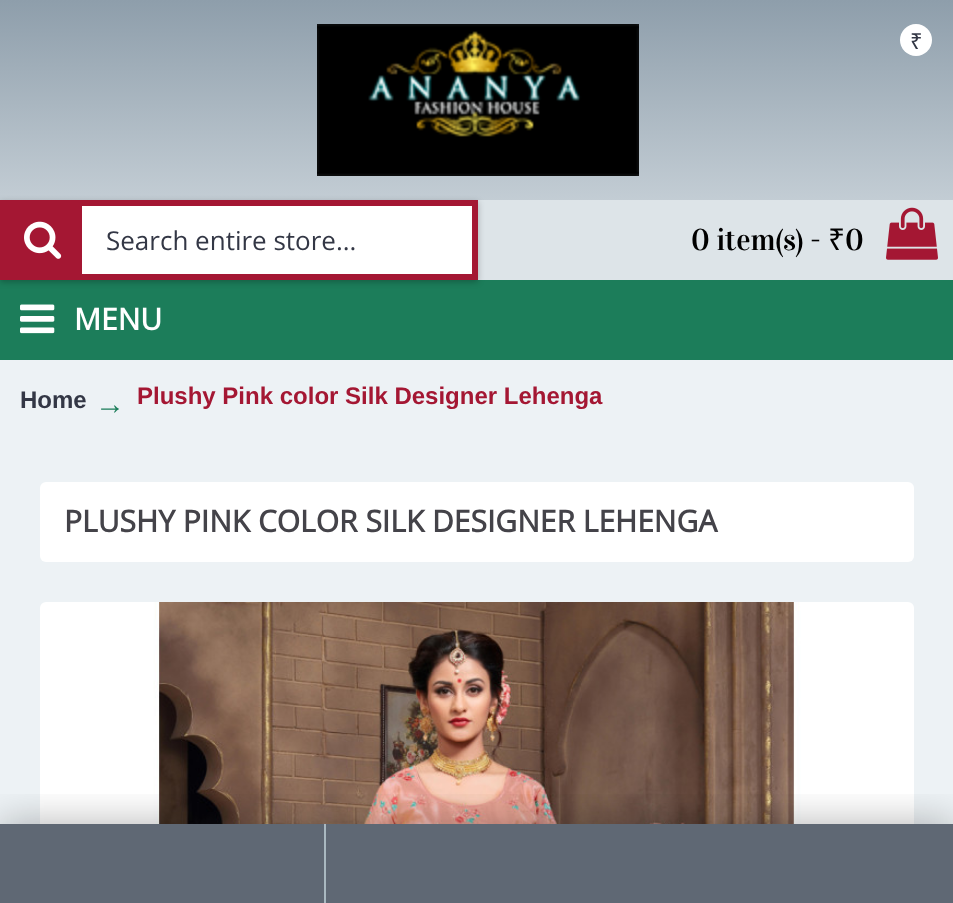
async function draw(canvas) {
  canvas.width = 953;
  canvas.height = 903;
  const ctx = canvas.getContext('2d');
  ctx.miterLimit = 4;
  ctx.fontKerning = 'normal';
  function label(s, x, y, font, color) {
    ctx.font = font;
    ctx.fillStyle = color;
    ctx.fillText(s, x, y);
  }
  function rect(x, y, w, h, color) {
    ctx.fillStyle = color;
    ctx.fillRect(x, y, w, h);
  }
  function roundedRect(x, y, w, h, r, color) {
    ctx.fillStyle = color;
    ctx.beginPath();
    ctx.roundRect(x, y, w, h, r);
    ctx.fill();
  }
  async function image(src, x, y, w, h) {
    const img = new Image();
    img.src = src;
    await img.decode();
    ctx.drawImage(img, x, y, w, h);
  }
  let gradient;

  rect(0, 0, 953, 903, '#edf2f5');
  gradient = ctx.createLinearGradient(477, 0, 477, 360);
  gradient.addColorStop(0, '#8e9eab');
  gradient.addColorStop(1, '#edf2f5');
  ctx.fillStyle = gradient;
  ctx.fillRect(0, 0, 953, 200);
  ctx.fillStyle = '#fff';
  ctx.beginPath();
  ctx.arc(916, 40, 16, 0, 2 * Math.PI);
  ctx.fill();
  label('₹', 910, 49, '22px Noto Sans', '#333745');
  rect(0, 824, 953, 79, '#5f6874');
  await image('assets/img5.png', 40, 602, 874, 222);
  ctx.save();
  ctx.beginPath();
  ctx.rect(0, 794, 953, 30);
  ctx.clip();
  ctx.fillStyle = '#0000004d';
  ctx.filter = 'blur(20px)';
  ctx.beginPath();
  ctx.rect(0, 824, 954, 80);
  ctx.fill();
  ctx.filter = 'none';
  ctx.restore();
  rect(324, 824, 2, 79, '#a9b8c0');
  await image('assets/img1.png', 317, 24, 322, 152);
  rect(478, 200, 475, 80, '#dde4e8');
  rect(0, 280, 953, 80, '#1c7d5a');
  ctx.fillStyle = '#00000040';
  ctx.filter = 'blur(3px)';
  ctx.beginPath();
  ctx.rect(0, 202, 478, 80);
  ctx.fill();
  ctx.filter = 'none';
  rect(82, 206, 390, 68, '#fff');
  ctx.strokeStyle = '#a41733';
  ctx.lineWidth = 6;
  ctx.strokeRect(3, 203, 472, 74);
  rect(6, 206, 76, 68, '#a41733');
  await image('assets/img2.png', 24, 221, 38, 38);
  label('Search entire store...', 106, 250, '26px Open Sans', '#333745');
  label('0 item(s) -', 691, 250, '30px Vidaloka', '#000');
  label('₹', 828, 250, '30px Noto Sans', '#000');
  label('0', 845, 250, '30px Vidaloka', '#000');
  await image('assets/img3.png', 886, 207, 52, 53);
  await image('assets/img4.png', 20, 304, 35, 30);
  label('MENU', 74, 330, 'bold 30px Open Sans', '#fff');
  label('Home', 20, 408, 'bold 24px Liberation Sans', '#333745');
  label('→', 95, 414, '30px Liberation Serif', '#1c7d5a');
  label('Plushy Pink color Silk Designer Lehenga', 137, 404, 'bold 24px Liberation Sans', '#a41733');
  roundedRect(40, 482, 874, 80, 6, '#fff');
  label('PLUSHY PINK COLOR SILK DESIGNER LEHENGA', 64, 532, 'bold 30px Open Sans', '#444349');
}

draw(document.querySelector('canvas'));
